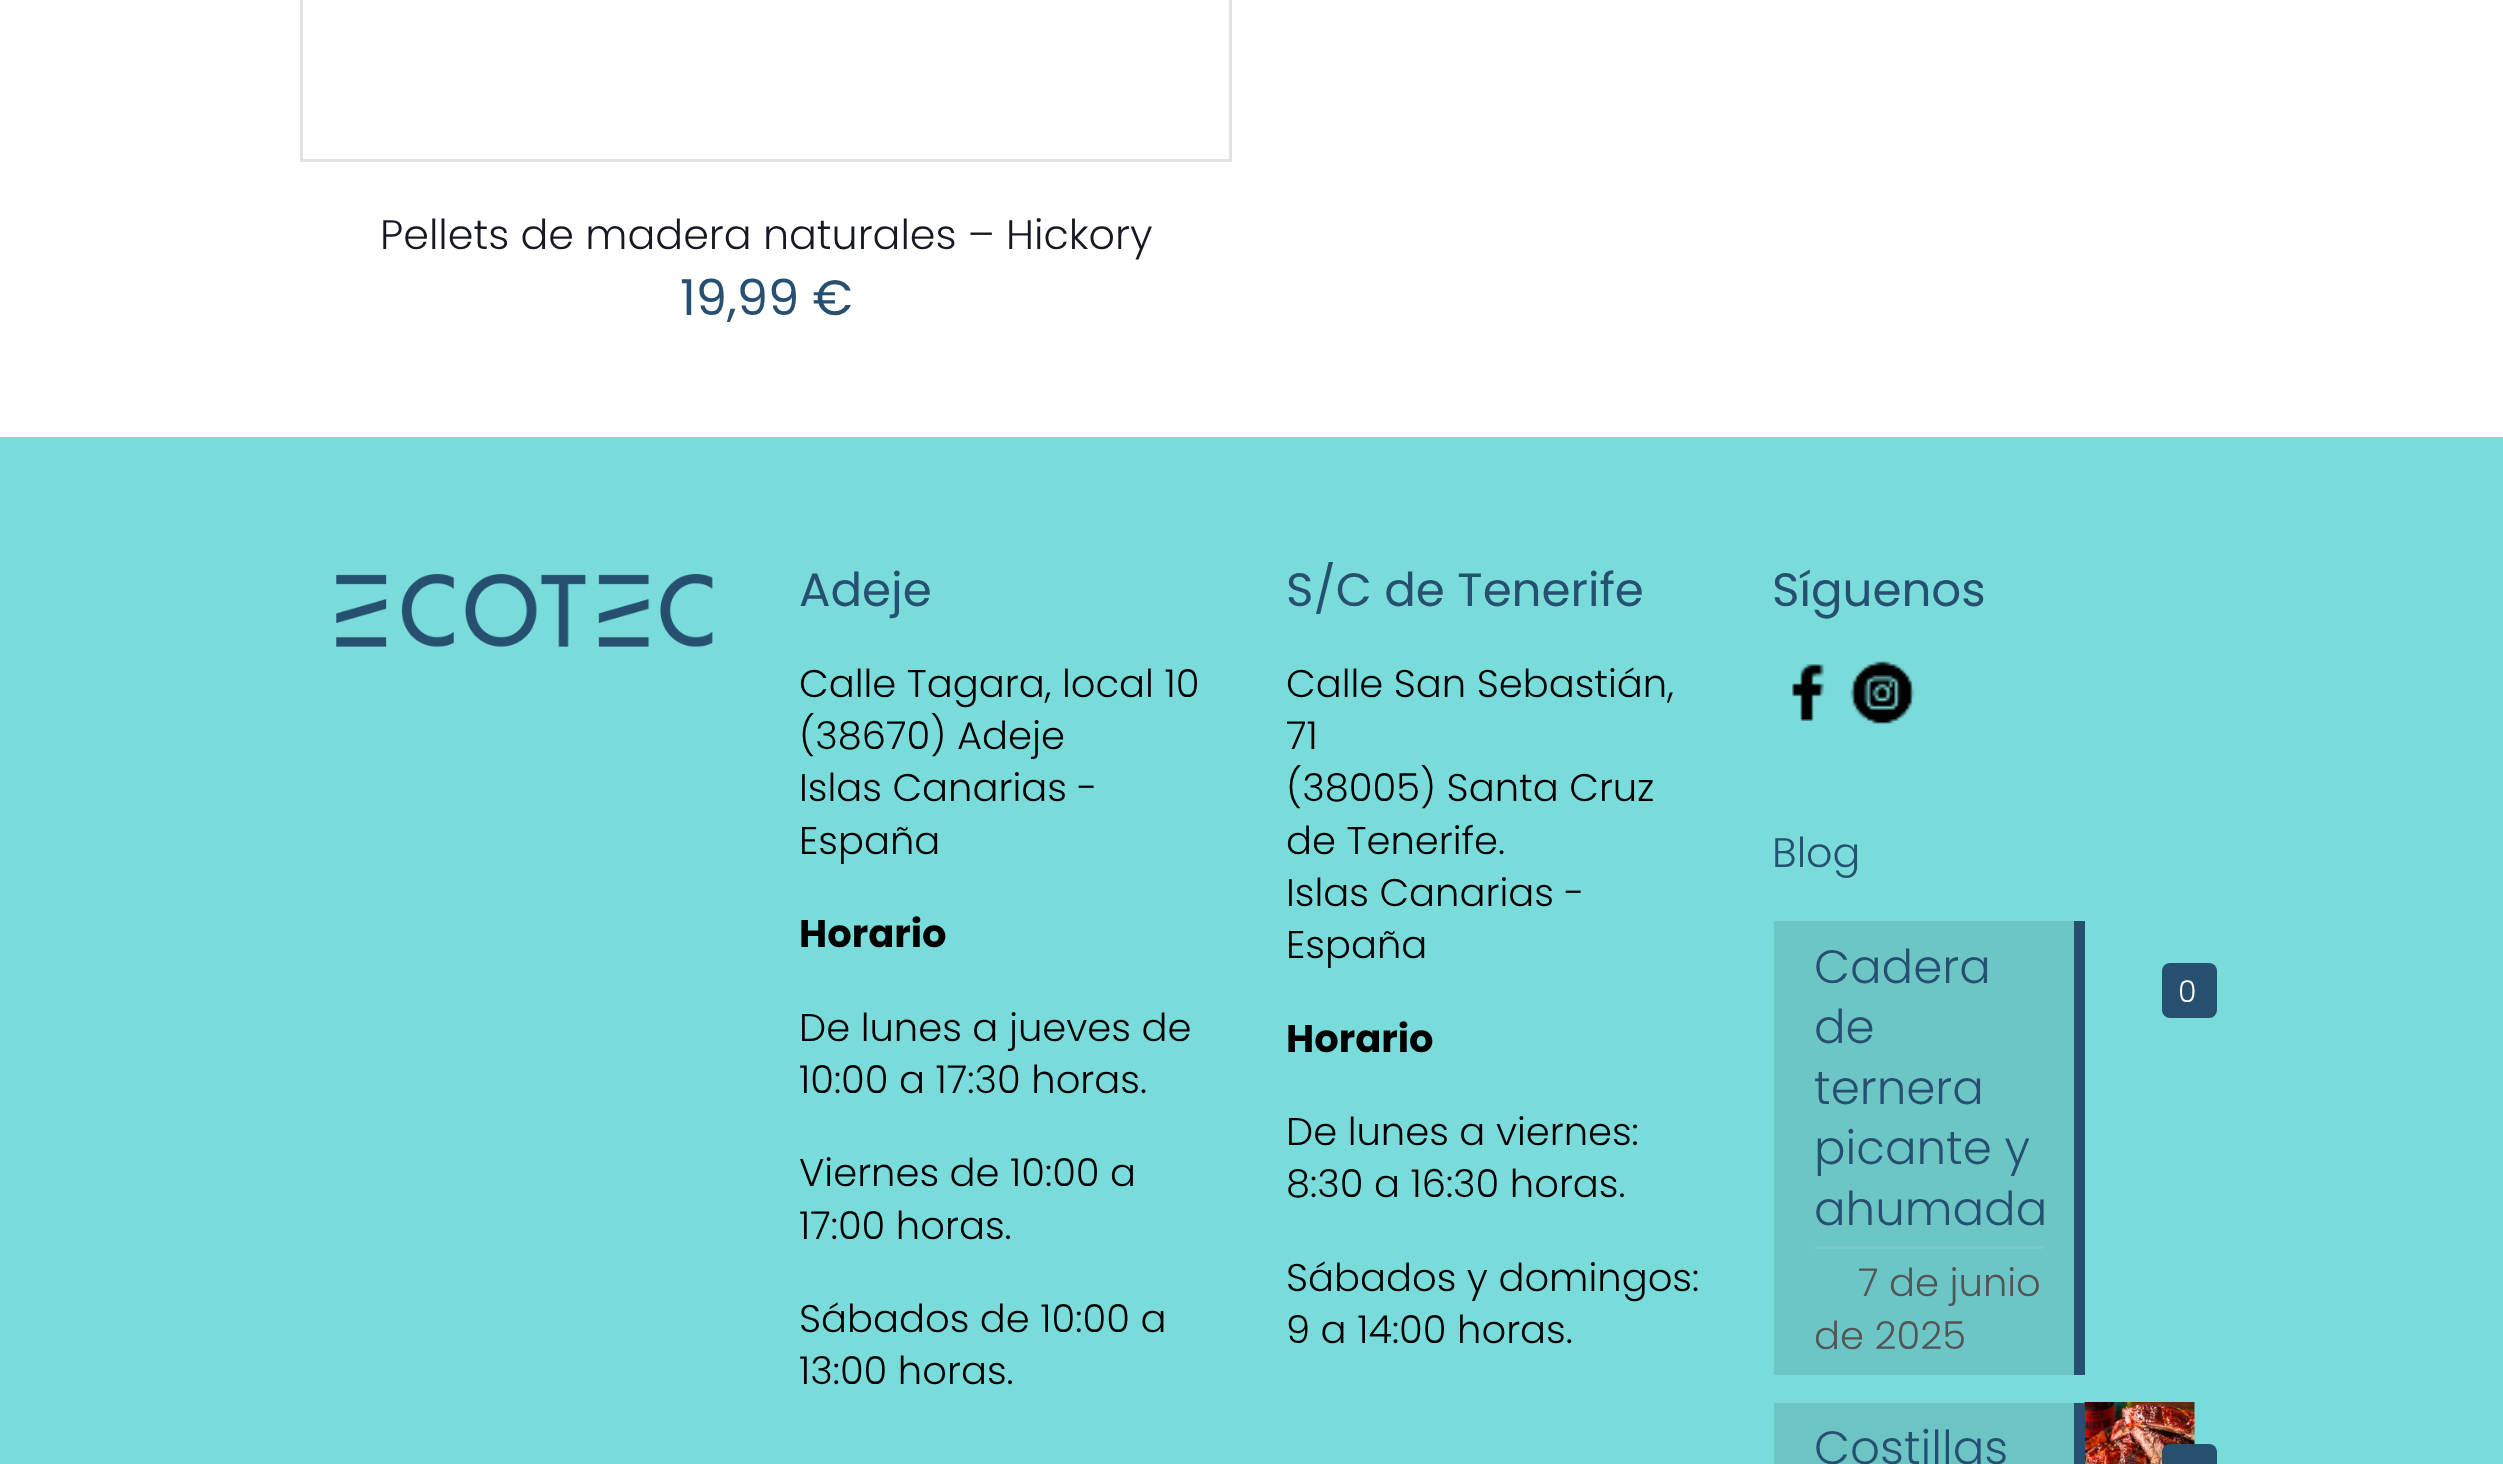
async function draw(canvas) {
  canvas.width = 2503;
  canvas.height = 1464;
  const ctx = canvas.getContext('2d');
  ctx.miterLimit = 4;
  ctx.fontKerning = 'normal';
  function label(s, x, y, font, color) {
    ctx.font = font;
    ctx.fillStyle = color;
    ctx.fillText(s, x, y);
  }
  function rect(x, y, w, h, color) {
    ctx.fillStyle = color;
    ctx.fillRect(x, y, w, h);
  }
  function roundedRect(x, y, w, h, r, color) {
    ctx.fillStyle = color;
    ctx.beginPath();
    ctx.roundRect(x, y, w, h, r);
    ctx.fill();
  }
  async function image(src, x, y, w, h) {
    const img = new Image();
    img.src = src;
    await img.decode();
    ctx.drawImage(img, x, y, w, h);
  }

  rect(0, 0, 2503, 1464, '#fff');
  ctx.strokeStyle = '#e2e2e2';
  ctx.lineWidth = 3;
  ctx.strokeRect(301.5, -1.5, 929, 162);
  label('Pellets de madera naturales – Hickory', 380, 249, '300 41.25px Poppins', '#161922');
  label('19,99 €', 680, 315, '49.5px Poppins', '#274f6f');
  rect(0, 437, 2503, 1027, '#79dcdb');
  await image('assets/img1.png', 336, 574, 377, 73);
  label('Adeje', 799, 606, '46.75px Poppins', '#274f6f');
  label('Calle Tagara, local 10', 799, 697, '300 38.5px Poppins', '#000');
  label('(38670) Adeje', 799, 749, '300 38.5px Poppins', '#000');
  label('Islas Canarias -', 799, 801, '300 38.5px Poppins', '#000');
  label('España', 799, 854, '300 38.5px Poppins', '#000');
  label('Horario', 799, 947, 'bold 38.5px Poppins', '#000');
  label('De lunes a jueves de', 799, 1041, '300 38.5px Poppins', '#000');
  label('10:00 a 17:30 horas.', 799, 1093, '300 38.5px Poppins', '#000');
  label('Viernes de 10:00 a', 799, 1186, '300 38.5px Poppins', '#000');
  label('17:00 horas.', 799, 1239, '300 38.5px Poppins', '#000');
  label('Sábados de 10:00 a', 799, 1332, '300 38.5px Poppins', '#000');
  label('13:00 horas.', 799, 1384, '300 38.5px Poppins', '#000');
  label('S/C de Tenerife', 1286, 606, '46.75px Poppins', '#274f6f');
  label('Calle San Sebastián,', 1286, 697, '300 38.5px Poppins', '#000');
  label('71', 1286, 749, '300 38.5px Poppins', '#000');
  label('(38005) Santa Cruz', 1286, 801, '300 38.5px Poppins', '#000');
  label('de Tenerife.', 1286, 854, '300 38.5px Poppins', '#000');
  label('Islas Canarias -', 1286, 906, '300 38.5px Poppins', '#000');
  label('España', 1286, 958, '300 38.5px Poppins', '#000');
  label('Horario', 1286, 1052, 'bold 38.5px Poppins', '#000');
  label('De lunes a viernes:', 1286, 1145, '300 38.5px Poppins', '#000');
  label('8:30 a 16:30 horas.', 1286, 1197, '300 38.5px Poppins', '#000');
  label('Sábados y domingos:', 1286, 1291, '300 38.5px Poppins', '#000');
  label('9 a 14:00 horas.', 1286, 1343, '300 38.5px Poppins', '#000');
  label('Síguenos', 1772, 606, '46.75px Poppins', '#274f6f');
  await image('assets/img2.png', 1792, 664, 33, 57);
  await image('assets/img3.png', 1850, 661, 65, 63);
  label('Blog', 1772, 867, '300 41.25px Poppins', '#274f6f');
  rect(1774, 921, 300, 454, '#6dc6c6');
  rect(1815, 1246, 228, 3, '#79cbcb');
  label('Cadera', 1814, 983, '300 46.75px Poppins', '#274f6f');
  label('de', 1814, 1043, '300 46.75px Poppins', '#274f6f');
  label('ternera', 1814, 1104, '300 46.75px Poppins', '#274f6f');
  label('picante y', 1814, 1164, '300 46.75px Poppins', '#274f6f');
  label('ahumada', 1814, 1225, '300 46.75px Poppins', '#274f6f');
  rect(2074, 921, 11, 454, '#274f6f');
  label('7 de junio', 1858, 1296, '300 38.5px Poppins', '#545454');
  label('de 2025', 1814, 1349, '300 38.5px Poppins', '#545454');
  roundedRect(2162, 963, 55, 55, 8, '#274f6f');
  label('0', 2178, 1002, '300 30px Poppins', '#fff');
  rect(1774, 1403, 300, 61, '#0000001a');
  label('Costillas', 1814, 1464, '300 46.75px Poppins', '#274f6f');
  await image('assets/img4.png', 2084, 1402, 111, 62);
  rect(2074, 1403, 11, 61, '#274f6f');
  roundedRect(2162, 1444, 55, 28, 8, '#274f6f');
}

draw(document.querySelector('canvas'));
